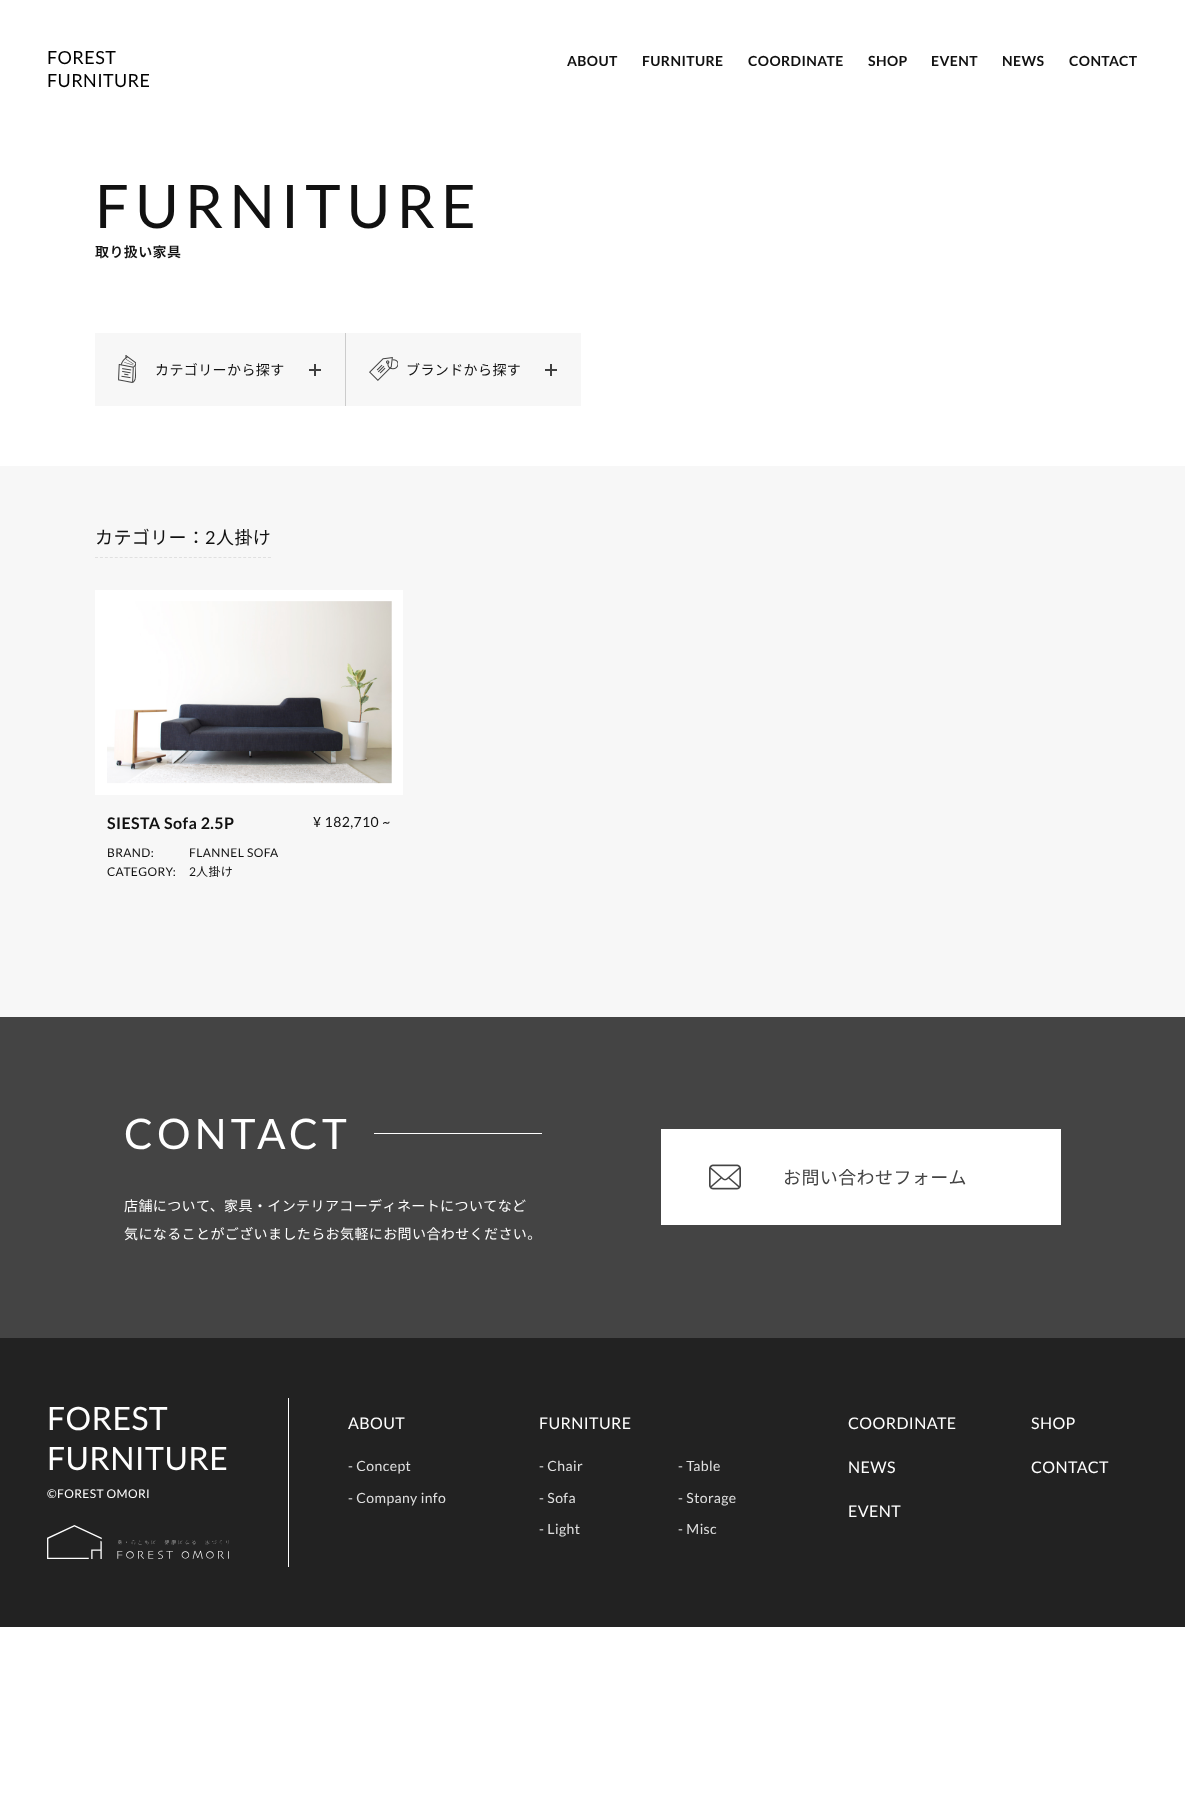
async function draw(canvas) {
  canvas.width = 1185;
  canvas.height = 1805;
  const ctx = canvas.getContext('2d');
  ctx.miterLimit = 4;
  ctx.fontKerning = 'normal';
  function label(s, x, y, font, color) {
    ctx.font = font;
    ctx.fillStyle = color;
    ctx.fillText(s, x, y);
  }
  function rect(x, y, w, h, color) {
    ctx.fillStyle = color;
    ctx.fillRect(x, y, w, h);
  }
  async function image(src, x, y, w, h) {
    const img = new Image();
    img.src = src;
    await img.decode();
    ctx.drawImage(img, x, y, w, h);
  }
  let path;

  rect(0, 0, 1185, 1805, '#fff');
  ctx.letterSpacing = '0.4px';
  label('FOREST', 47, 64, '18px Lato', '#000');
  label('FURNITURE', 47, 87, '18px Lato', '#000');
  label('ABOUT', 567, 66, 'bold 14px Lato', '#111');
  label('FURNITURE', 642, 66, 'bold 14px Lato', '#111');
  label('COORDINATE', 748, 66, 'bold 14px Lato', '#111');
  label('SHOP', 868, 66, 'bold 14px Lato', '#111');
  label('EVENT', 931, 66, 'bold 14px Lato', '#111');
  label('NEWS', 1002, 66, 'bold 14px Lato', '#111');
  label('CONTACT', 1069, 66, 'bold 14px Lato', '#111');
  ctx.letterSpacing = '6px';
  label('FURNITURE', 95, 228, '60px Lato', '#111');
  ctx.letterSpacing = '0.4px';
  label('取り扱い家具', 95, 257, '600 14px Noto Sans JP', '#111');
  rect(95, 333, 250, 73, '#f7f7f7');
  await image('assets/img1.png', 118, 355, 18, 28);
  label('カテゴリーから探す', 155, 375, '14px Noto Sans JP', '#111');
  rect(314, 364, 2, 12, '#404040');
  rect(309, 369, 12, 2, '#404040');
  rect(346, 333, 235, 73, '#f7f7f7');
  rect(345, 333, 1, 73, '#ccc');
  await image('assets/img2.png', 369, 357, 29, 24);
  label('ブランドから探す', 406, 375, '14px Noto Sans JP', '#111');
  rect(550, 364, 2, 12, '#404040');
  rect(545, 369, 12, 2, '#404040');
  rect(0, 466, 1185, 551, '#f7f7f7');
  path = new Path2D('M95 557.5H271');
  ctx.strokeStyle = '#e0e0e0';
  ctx.setLineDash([3, 1.94]);
  ctx.stroke(path);
  label('カテゴリー：', 95, 544, '18px Noto Sans JP', '#111');
  label('2', 205, 544, '18px Lato', '#111');
  label('人掛け', 216, 544, '18px Noto Sans JP', '#111');
  rect(95, 590, 308, 205, '#fff');
  await image('assets/img3.png', 107, 601, 285, 183);
  label('SIESTA Sofa 2.5P', 107, 829, 'bold 16px Lato', '#111');
  label('¥ 182,710 ~', 313, 827, '14px Lato', '#111');
  label('BRAND:', 107, 857, '12px Lato', '#111');
  label('FLANNEL SOFA', 189, 857, '12px Lato', '#111');
  label('CATEGORY:', 107, 876, '12px Lato', '#111');
  label('2', 189, 876, '12px Lato', '#111');
  label('人掛け', 196, 876, '12px Noto Sans JP', '#111');
  rect(0, 1017, 1185, 321, '#444');
  ctx.letterSpacing = '4.25px';
  label('CONTACT', 124, 1149, '42px Lato', '#fff');
  rect(374, 1133, 168, 1, '#fff');
  ctx.letterSpacing = '0.4px';
  label('店舗について、家具・インテリアコーディネートについてなど', 124, 1211, '14px Noto Sans JP', '#fff');
  label('気になることがございましたらお気軽にお問い合わせください。', 124, 1239, '14px Noto Sans JP', '#fff');
  rect(661, 1129, 400, 96, '#fff');
  await image('assets/img4.png', 709, 1164, 32, 26);
  label('お問い合わせフォーム', 783, 1184, '18px Noto Sans JP', '#444');
  rect(0, 1338, 1185, 289, '#222');
  rect(288, 1398, 1, 169, '#fff');
  label('FOREST', 47, 1430, '32px Lato', '#fff');
  label('FURNITURE', 47, 1470, '32px Lato', '#fff');
  label('©︎FOREST OMORI', 47, 1498, '12px Lato', '#fff');
  await image('assets/img5.png', 47, 1525, 182, 34);
  label('ABOUT', 348, 1429, '16px Lato', '#fff');
  label('- Concept', 348, 1471, '14px Lato', '#e0e0e0');
  label('- Company info', 348, 1503, '14px Lato', '#e0e0e0');
  label('FURNITURE', 539, 1429, '16px Lato', '#fff');
  label('- Chair', 539, 1471, '14px Lato', '#e0e0e0');
  label('- Table', 678, 1471, '14px Lato', '#e0e0e0');
  label('- Sofa', 539, 1503, '14px Lato', '#e0e0e0');
  label('- Storage', 678, 1503, '14px Lato', '#e0e0e0');
  label('- Light', 539, 1534, '14px Lato', '#e0e0e0');
  label('- Misc', 678, 1534, '14px Lato', '#e0e0e0');
  label('COORDINATE', 848, 1429, '16px Lato', '#fff');
  label('NEWS', 848, 1473, '16px Lato', '#fff');
  label('EVENT', 848, 1517, '16px Lato', '#fff');
  label('SHOP', 1031, 1429, '16px Lato', '#fff');
  label('CONTACT', 1031, 1473, '16px Lato', '#fff');
}

draw(document.querySelector('canvas'));
